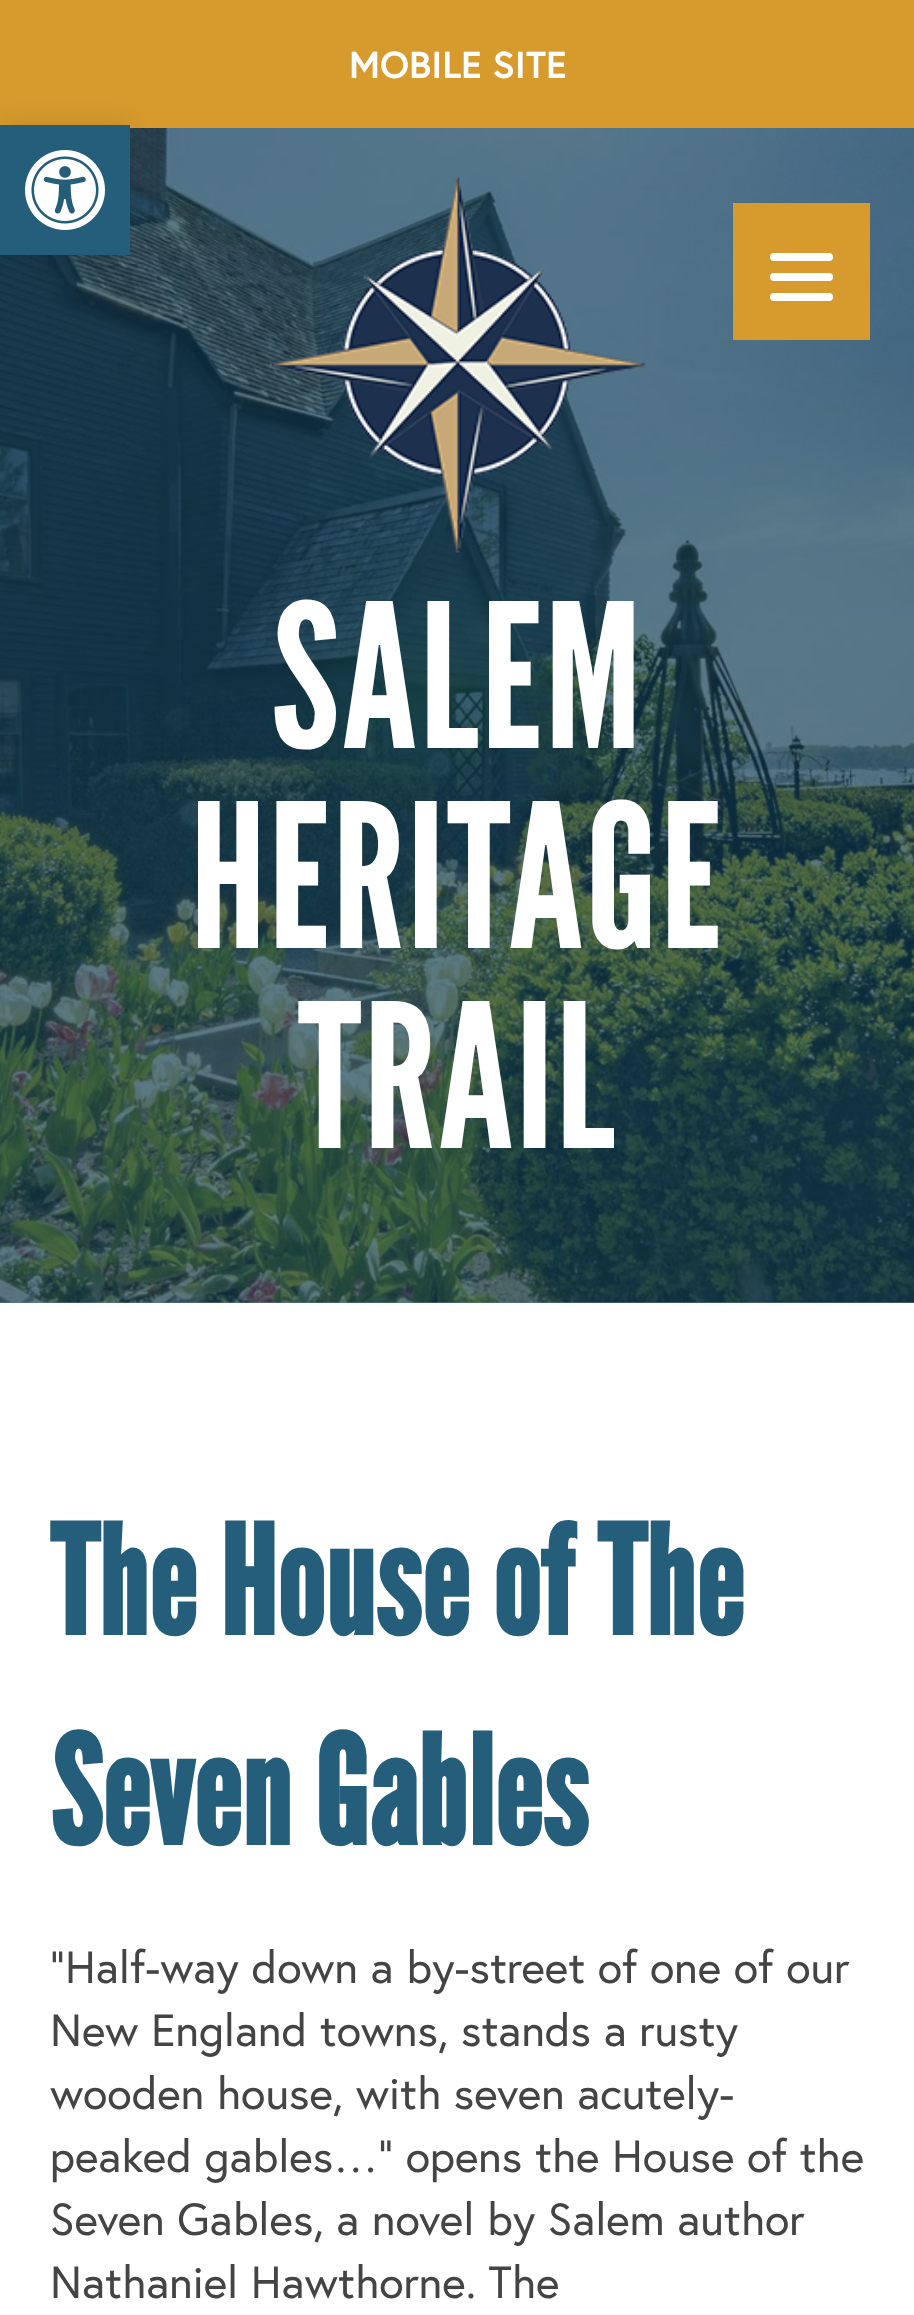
async function draw(canvas) {
  canvas.width = 914;
  canvas.height = 2315;
  const ctx = canvas.getContext('2d');
  ctx.miterLimit = 4;
  ctx.fontKerning = 'normal';
  function label(s, x, y, font, color) {
    ctx.font = font;
    ctx.fillStyle = color;
    ctx.fillText(s, x, y);
  }
  function rect(x, y, w, h, color) {
    ctx.fillStyle = color;
    ctx.fillRect(x, y, w, h);
  }
  function roundedRect(x, y, w, h, r, color) {
    ctx.fillStyle = color;
    ctx.beginPath();
    ctx.roundRect(x, y, w, h, r);
    ctx.fill();
  }
  async function image(src, x, y, w, h) {
    const img = new Image();
    img.src = src;
    await img.decode();
    ctx.drawImage(img, x, y, w, h);
  }

  rect(0, 0, 914, 2315, '#fff');
  rect(0, 1302, 914, 1, '#5c7c8b');
  rect(0, 0, 914, 128, '#d69a2d');
  label('MOBILE SITE', 349, 78, 'bold 37.5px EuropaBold', '#fff');
  await image('assets/img1.png', 0, 128, 914, 1175);
  rect(733, 203, 137, 137, '#d69a2d');
  roundedRect(770, 253, 63, 8, 4, '#fff');
  roundedRect(770, 273, 63, 8, 4, '#fff');
  roundedRect(770, 293, 63, 8, 4, '#fff');
  await image('assets/img2.png', 270, 177, 375, 376);
  ctx.letterSpacing = '2.5px';
  label('SALEM', 271, 748, '200px League Gothic', '#fff');
  label('HERITAGE', 190, 948, '200px League Gothic', '#fff');
  label('TRAIL', 298, 1148, '200px League Gothic', '#fff');
  ctx.letterSpacing = '0px';
  label('The House of The', 50, 1635, 'bold 150px League Gothic', '#255e7a');
  label('Seven Gables', 50, 1845, 'bold 150px League Gothic', '#255e7a');
  label('“Half-way down a by-street of one of our', 50, 1983, '45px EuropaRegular', '#444');
  label('New England towns, stands a rusty', 50, 2046, '45px EuropaRegular', '#444');
  label('wooden house, with seven acutely-', 50, 2109, '45px EuropaRegular', '#444');
  label('peaked gables…” opens the House of the', 50, 2172, '45px EuropaRegular', '#444');
  label('Seven Gables, a novel by Salem author', 50, 2235, '45px EuropaRegular', '#444');
  label('Nathaniel Hawthorne. The', 50, 2298, '45px EuropaRegular', '#444');
  ctx.fillStyle = '#0000001a';
  ctx.filter = 'blur(12.5px)';
  ctx.beginPath();
  ctx.rect(0, 125, 130, 130);
  ctx.fill();
  ctx.filter = 'none';
  rect(0, 125, 130, 130, '#255e7a');
  await image('assets/img3.png', 25, 150, 80, 80);
}

draw(document.querySelector('canvas'));
